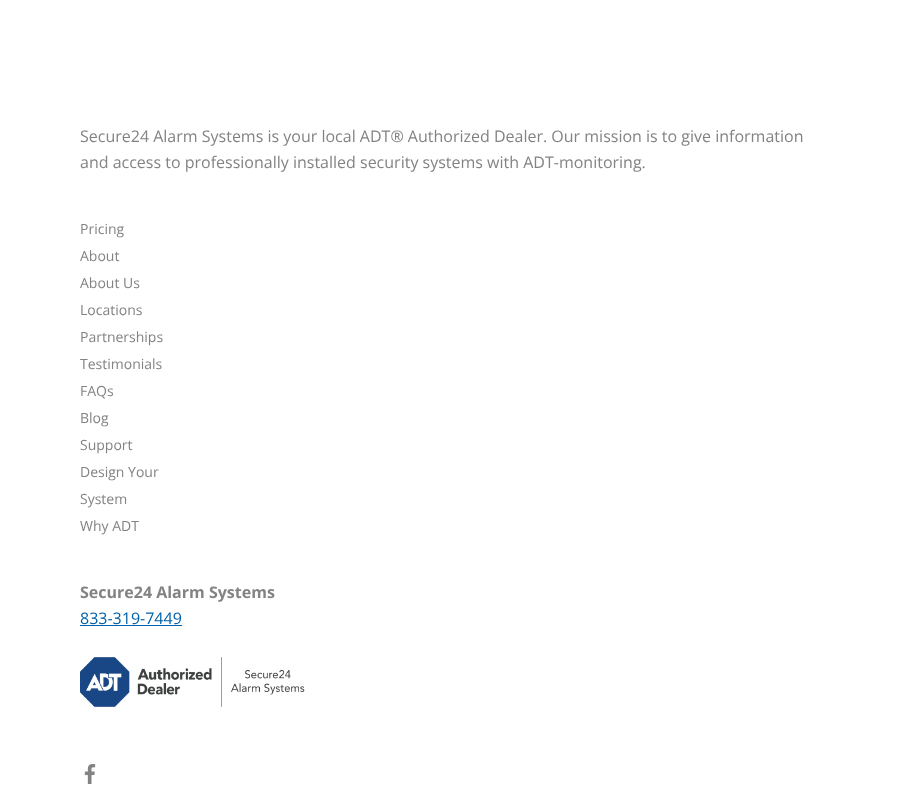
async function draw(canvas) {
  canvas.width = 909;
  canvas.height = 807;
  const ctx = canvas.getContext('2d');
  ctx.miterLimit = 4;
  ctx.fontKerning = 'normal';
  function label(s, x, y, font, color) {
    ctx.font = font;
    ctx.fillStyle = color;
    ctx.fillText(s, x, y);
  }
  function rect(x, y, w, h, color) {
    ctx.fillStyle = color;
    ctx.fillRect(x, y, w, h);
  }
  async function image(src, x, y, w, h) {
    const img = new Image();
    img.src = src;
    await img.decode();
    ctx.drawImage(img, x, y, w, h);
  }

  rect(0, 0, 909, 807, '#fff');
  label('Secure24 Alarm Systems is your local ADT® Authorized Dealer. Our mission is to give information', 80, 142, '16px Open Sans', '#838383');
  label('and access to professionally installed security systems with ADT-monitoring.', 80, 168, '16px Open Sans', '#838383');
  label('Pricing', 80, 234, '14px Open Sans', '#838383');
  label('About', 80, 261, '14px Open Sans', '#838383');
  label('About Us', 80, 288, '14px Open Sans', '#838383');
  label('Locations', 80, 315, '14px Open Sans', '#838383');
  label('Partnerships', 80, 342, '14px Open Sans', '#838383');
  label('Testimonials', 80, 369, '14px Open Sans', '#838383');
  label('FAQs', 80, 396, '14px Open Sans', '#838383');
  label('Blog', 80, 423, '14px Open Sans', '#838383');
  label('Support', 80, 450, '14px Open Sans', '#838383');
  label('Design Your', 80, 477, '14px Open Sans', '#838383');
  label('System', 80, 504, '14px Open Sans', '#838383');
  label('Why ADT', 80, 531, '14px Open Sans', '#838383');
  label('Secure24 Alarm Systems', 80, 598, 'bold 16px Open Sans', '#838383');
  label('833-319-7449', 80, 624, '16px Open Sans', '#0061aa');
  rect(80, 625, 102, 1, '#0061aa');
  await image('assets/img1.png', 80, 657, 225, 50);
  await image('assets/img2.png', 84, 764, 12, 20);
}

draw(document.querySelector('canvas'));
